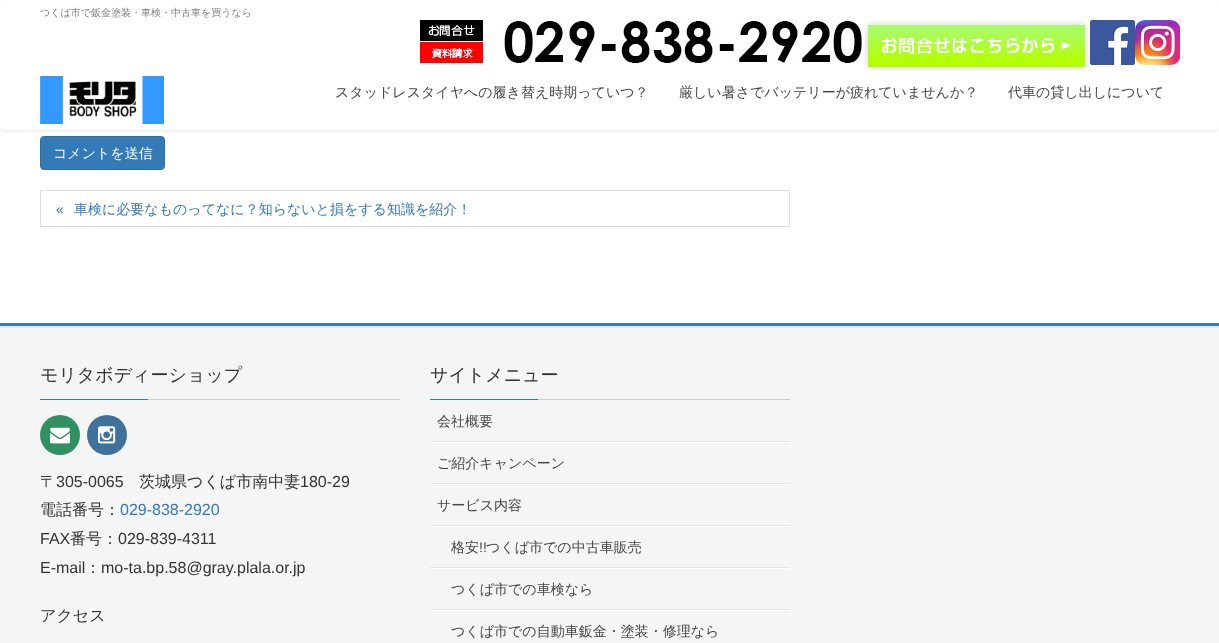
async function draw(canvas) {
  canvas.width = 1219;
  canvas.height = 643;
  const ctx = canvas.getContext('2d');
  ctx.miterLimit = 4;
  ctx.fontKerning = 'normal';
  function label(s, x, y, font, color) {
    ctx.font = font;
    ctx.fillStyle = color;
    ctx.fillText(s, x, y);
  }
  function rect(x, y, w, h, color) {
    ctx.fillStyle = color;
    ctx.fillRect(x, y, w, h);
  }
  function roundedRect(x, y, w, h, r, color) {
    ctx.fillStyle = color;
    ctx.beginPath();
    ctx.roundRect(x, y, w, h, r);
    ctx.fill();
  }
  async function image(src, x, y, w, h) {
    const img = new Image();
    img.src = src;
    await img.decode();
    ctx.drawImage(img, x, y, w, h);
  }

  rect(0, 0, 1219, 643, '#fff');
  ctx.fillStyle = '#337ab7';
  ctx.beginPath();
  ctx.roundRect(40.5, 136.5, 124, 33, 3.5);
  ctx.fill();
  ctx.strokeStyle = '#2e6da4';
  ctx.stroke();
  ctx.fillStyle = '#0000001a';
  ctx.filter = 'blur(1.5px)';
  ctx.beginPath();
  ctx.roundRect(0, 1, 1219, 130, 4);
  ctx.fill();
  ctx.filter = 'none';
  roundedRect(0, 0, 1219, 130, 4, '#fff');
  label('つくば市で鈑金塗装・車検・中古車を買うなら', 40, 16, '500 10px WenQuanYi Zen Hei', '#808080');
  await image('assets/img1.png', 420, 20, 442, 43);
  await image('assets/img2.png', 864, 20, 226, 51);
  await image('assets/img3.png', 1090, 20, 45, 45);
  await image('assets/img4.png', 1135, 20, 45, 45);
  await image('assets/img5.png', 40, 76, 124, 48);
  label('スタッドレスタイヤへの履き替え時期っていつ？', 335, 97, '500 14px WenQuanYi Zen Hei', '#464646');
  label('厳しい暑さでバッテリーが疲れていませんか？', 679, 97, '500 14px WenQuanYi Zen Hei', '#464646');
  label('代車の貸し出しについて', 1008, 97, '500 14px WenQuanYi Zen Hei', '#464646');
  label('コメントを送信', 53, 158, '500 14px WenQuanYi Zen Hei', '#fff');
  ctx.strokeStyle = '#ddd';
  ctx.strokeRect(40.5, 190.5, 749, 36);
  label('«', 56, 214, '14px Liberation Sans', '#337ab7');
  label('車検に必要なものってなに？知らないと損をする知識を紹介！', 74, 214, '500 14px WenQuanYi Zen Hei', '#337ab7');
  rect(0, 328, 1219, 315, '#f5f5f5');
  rect(0, 323, 1219, 3, '#337ab7');
  rect(0, 326, 1219, 2, '#e5e5e5');
  rect(148, 399, 252, 1, '#ccc');
  label('モリタボディーショップ', 40, 381, '500 18px WenQuanYi Zen Hei', '#333');
  rect(40, 399, 108, 1, '#337ab7');
  ctx.fillStyle = '#2f915f';
  ctx.beginPath();
  ctx.arc(60, 435, 20, 0, 2 * Math.PI);
  ctx.fill();
  await image('assets/img6.png', 50, 427, 20, 17);
  ctx.fillStyle = '#3f729b';
  ctx.beginPath();
  ctx.arc(107, 435, 20, 0, 2 * Math.PI);
  ctx.fill();
  await image('assets/img7.png', 98, 426, 18, 18);
  label('〒', 40, 487, '500 16px WenQuanYi Zen Hei', '#333');
  label('305-0065', 56, 487, '16px Liberation Sans', '#333');
  label('茨城県つくば市南中妻', 139, 487, '500 16px WenQuanYi Zen Hei', '#333');
  label('180-29', 300, 487, '16px Liberation Sans', '#333');
  label('電話番号：', 40, 515, '500 16px WenQuanYi Zen Hei', '#333');
  label('029-838-2920', 120, 515, '16px Liberation Sans', '#337ab7');
  label('FAX', 40, 544, '16px Liberation Sans', '#333');
  label('番号：', 70, 544, '500 16px WenQuanYi Zen Hei', '#333');
  label('029-839-4311', 118, 544, '16px Liberation Sans', '#333');
  label('E-mail', 40, 573, '16px Liberation Sans', '#333');
  label('：', 85, 573, '500 16px WenQuanYi Zen Hei', '#333');
  label('mo-ta.bp.58@gray.plala.or.jp', 101, 573, '16px Liberation Sans', '#333');
  label('アクセス', 40, 621, '500 16px WenQuanYi Zen Hei', '#333');
  rect(538, 399, 252, 1, '#ccc');
  label('サイトメニュー', 430, 381, '500 18px WenQuanYi Zen Hei', '#333');
  rect(430, 399, 108, 1, '#337ab7');
  rect(430, 442, 360, 1, '#fefefe');
  rect(430, 441, 360, 1, '#e5e5e5');
  label('会社概要', 437, 426, '500 14px WenQuanYi Zen Hei', '#464646');
  rect(430, 484, 360, 1, '#fefefe');
  rect(430, 483, 360, 1, '#e5e5e5');
  label('ご紹介キャンペーン', 437, 468, '500 14px WenQuanYi Zen Hei', '#464646');
  rect(430, 526, 360, 1, '#fefefe');
  rect(430, 525, 360, 1, '#e5e5e5');
  label('サービス内容', 437, 510, '500 14px WenQuanYi Zen Hei', '#464646');
  rect(430, 568, 360, 1, '#fefefe');
  rect(430, 567, 360, 1, '#e5e5e5');
  label('格安', 451, 552, '500 14px WenQuanYi Zen Hei', '#464646');
  label('!!', 479, 552, '14px Liberation Sans', '#464646');
  label('つくば市での中古車販売', 486, 552, '500 14px WenQuanYi Zen Hei', '#464646');
  rect(430, 610, 360, 1, '#fefefe');
  rect(430, 609, 360, 1, '#e5e5e5');
  label('つくば市での車検なら', 451, 594, '500 14px WenQuanYi Zen Hei', '#464646');
  label('つくば市での自動車鈑金・塗装・修理なら', 451, 636, '500 14px WenQuanYi Zen Hei', '#464646');
}

draw(document.querySelector('canvas'));
